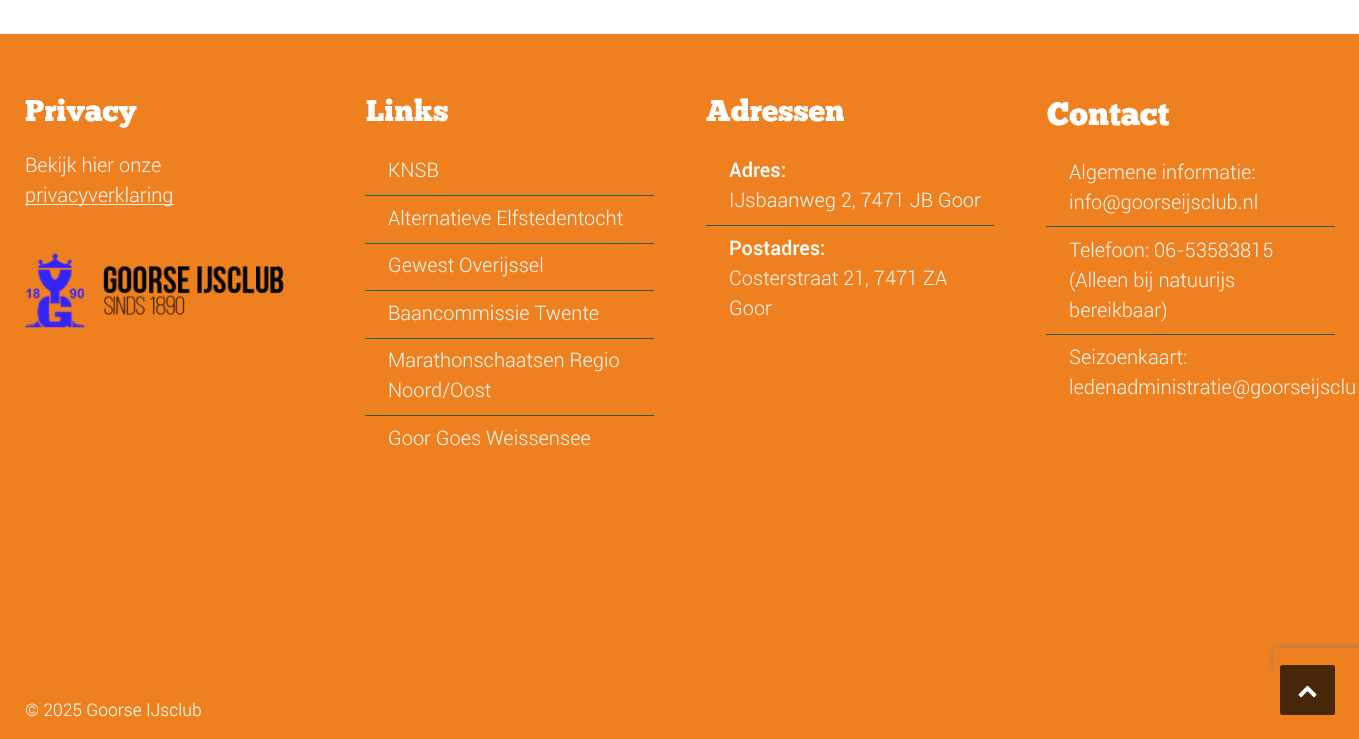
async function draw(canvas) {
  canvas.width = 1359;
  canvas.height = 739;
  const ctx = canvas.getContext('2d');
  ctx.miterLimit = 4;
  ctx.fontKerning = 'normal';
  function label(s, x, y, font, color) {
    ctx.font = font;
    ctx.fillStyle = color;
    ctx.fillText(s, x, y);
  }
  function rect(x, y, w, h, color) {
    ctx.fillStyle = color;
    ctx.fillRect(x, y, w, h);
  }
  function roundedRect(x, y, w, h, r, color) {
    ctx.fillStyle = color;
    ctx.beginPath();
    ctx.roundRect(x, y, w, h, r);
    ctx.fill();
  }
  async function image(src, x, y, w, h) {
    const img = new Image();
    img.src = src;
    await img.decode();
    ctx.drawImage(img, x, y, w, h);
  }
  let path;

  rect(0, 0, 1359, 739, '#fff');
  rect(0, 34, 1359, 636, '#ef801f');
  label('Privacy', 25, 121, '30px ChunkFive', '#fff');
  label('Bekijk hier onze', 25, 172, '300 20px Roboto', '#f0f6f3');
  rect(25, 204, 149, 1, '#f0f6f3');
  label('privacyverklaring', 25, 202, '300 20px Roboto', '#f0f6f3');
  await image('assets/img1.png', 25, 253, 259, 75);
  label('Links', 366, 121, '30px ChunkFive', '#fff');
  rect(365, 195, 289, 1, '#255f3f');
  label('KNSB', 388, 177, '300 20px Roboto', '#f0f6f3');
  rect(365, 243, 289, 1, '#255f3f');
  label('Alternatieve Elfstedentocht', 388, 225, '300 20px Roboto', '#f0f6f3');
  rect(365, 290, 289, 1, '#255f3f');
  label('Gewest Overijssel', 388, 272, '300 20px Roboto', '#f0f6f3');
  rect(365, 338, 289, 1, '#255f3f');
  label('Baancommissie Twente', 388, 320, '300 20px Roboto', '#f0f6f3');
  rect(365, 415, 289, 1, '#255f3f');
  label('Marathonschaatsen Regio', 388, 367, '300 20px Roboto', '#f0f6f3');
  label('Noord/Oost', 388, 397, '300 20px Roboto', '#f0f6f3');
  label('Goor Goes Weissensee', 388, 445, '300 20px Roboto', '#f0f6f3');
  label('Adressen', 706, 121, '30px ChunkFive', '#fff');
  rect(706, 225, 288, 1, '#255f3f');
  label('Adres:', 729, 177, '500 20px Roboto', '#fff');
  label('IJsbaanweg 2, 7471 JB Goor', 729, 207, '300 20px Roboto', '#f0f6f3');
  label('Postadres:', 729, 255, '500 20px Roboto', '#fff');
  label('Costerstraat 21, 7471 ZA', 729, 285, '300 20px Roboto', '#f0f6f3');
  label('Goor', 729, 315, '300 20px Roboto', '#f0f6f3');
  label('Contact', 1047, 125, '32.5px ChunkFive', '#fff');
  rect(1046, 226, 289, 1, '#255f3f');
  label('Algemene informatie:', 1069, 179, '300 20px Roboto', '#f0f6f3');
  label('info@goorseijsclub.nl', 1069, 209, '300 20px Roboto', '#f0f6f3');
  rect(1046, 334, 289, 1, '#255f3f');
  label('Telefoon: 06-53583815', 1069, 257, '300 20px Roboto', '#f0f6f3');
  label('(Alleen bij natuurijs', 1069, 287, '300 20px Roboto', '#f0f6f3');
  label('bereikbaar)', 1069, 317, '300 20px Roboto', '#f0f6f3');
  label('Seizoenkaart:', 1069, 364, '300 20px Roboto', '#f0f6f3');
  label('ledenadministratie@goorseijsclu', 1069, 394, '300 20px Roboto', '#f0f6f3');
  ctx.save();
  path = new Path2D('M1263 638H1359V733H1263ZM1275.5 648H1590.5C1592 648 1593 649 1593 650.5V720.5C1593 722 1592 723 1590.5 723H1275.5C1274 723 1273 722 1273 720.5V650.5C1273 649 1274 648 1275.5 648Z');
  ctx.clip(path, 'evenodd');
  ctx.fillStyle = '#808080';
  ctx.filter = 'blur(3px)';
  ctx.beginPath();
  ctx.roundRect(1273, 648, 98, 75, 2.5);
  ctx.fill();
  ctx.filter = 'none';
  ctx.restore();
  rect(0, 670, 1359, 69, '#ef801f');
  label('© 2025 Goorse IJsclub', 25, 716, '300 17.5px Roboto', '#fff');
  roundedRect(1280, 665, 55, 50, 2.5, '#482609');
  await image('assets/img2.png', 1298, 685, 19, 13);
}

draw(document.querySelector('canvas'));
